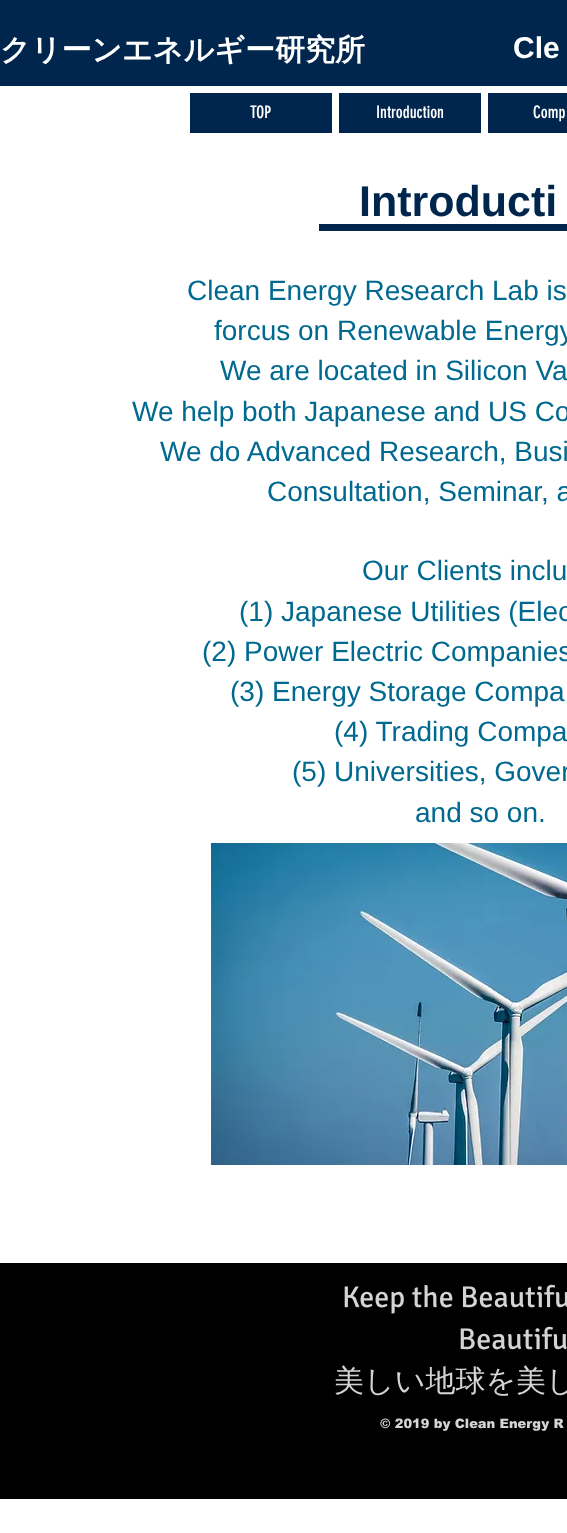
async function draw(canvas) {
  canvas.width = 567;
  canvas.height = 1533;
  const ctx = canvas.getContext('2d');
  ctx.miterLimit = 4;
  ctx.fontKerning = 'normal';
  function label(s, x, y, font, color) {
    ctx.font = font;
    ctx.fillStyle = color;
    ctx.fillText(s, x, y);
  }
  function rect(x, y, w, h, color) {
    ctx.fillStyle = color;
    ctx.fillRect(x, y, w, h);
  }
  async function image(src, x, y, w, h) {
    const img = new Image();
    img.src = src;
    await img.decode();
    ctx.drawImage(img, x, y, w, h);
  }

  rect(0, 0, 567, 1533, '#fff');
  rect(0, 0, 567, 86, '#00264d');
  label('クリーンエネルギー研究所', 0, 60, 'bold 30px WenQuanYi Zen Hei', '#fff');
  label('Cle', 513, 58, 'bold 30px Liberation Sans', '#fff');
  rect(190, 93, 142, 40, '#00264d');
  label('TOP', 250, 118, '17px "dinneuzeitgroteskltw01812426"', '#fff');
  rect(339, 93, 142, 40, '#00264d');
  label('Introduction', 376, 118, '17px "dinneuzeitgroteskltw01812426"', '#fff');
  rect(488, 93, 79, 40, '#00264d');
  label('Comp', 533, 118, '17px "dinneuzeitgroteskltw01812426"', '#fff');
  label('Introducti', 359, 216, 'bold 43px Liberation Sans', '#00264d');
  rect(319, 224, 248, 7, '#00264d');
  label('Clean Energy Research Lab is', 187, 300, '28px Liberation Sans', '#006990');
  label('forcus on Renewable Energy', 214, 340, '28px Liberation Sans', '#006990');
  label('We are located in Silicon Va', 220, 380, '28px Liberation Sans', '#006990');
  label('We help both Japanese and US Co', 132, 421, '28px Liberation Sans', '#006990');
  label('We do Advanced Research, Busi', 160, 461, '28px Liberation Sans', '#006990');
  label('Consultation, Seminar, a', 267, 501, '28px Liberation Sans', '#006990');
  label('Our Clients inclu', 362, 580, '28px Liberation Sans', '#006990');
  label('(1) Japanese Utilities (Elec', 239, 621, '28px Liberation Sans', '#006990');
  label('(2) Power Electric Companies', 202, 661, '28px Liberation Sans', '#006990');
  label('(3) Energy Storage Compa', 230, 701, '28px Liberation Sans', '#006990');
  label('(4) Trading Compa', 334, 741, '28px Liberation Sans', '#006990');
  label('(5) Universities, Gover', 292, 781, '28px Liberation Sans', '#006990');
  label('and so on.', 415, 822, '28px Liberation Sans', '#006990');
  await image('assets/img1.png', 211, 843, 356, 322);
  rect(0, 1263, 567, 236, '#000');
  label('Keep the Beautifu', 342, 1307, '30px Signika', '#d4d4d4');
  label('Beautifu', 458, 1349, '30px Signika', '#d4d4d4');
  label('美しい地球を美し', 334, 1391, '500 30px WenQuanYi Zen Hei', '#d4d4d4');
  label('© 2019 by Clean Energy R', 380, 1428, '900 13px arial', '#d4d4d4');
}

draw(document.querySelector('canvas'));
